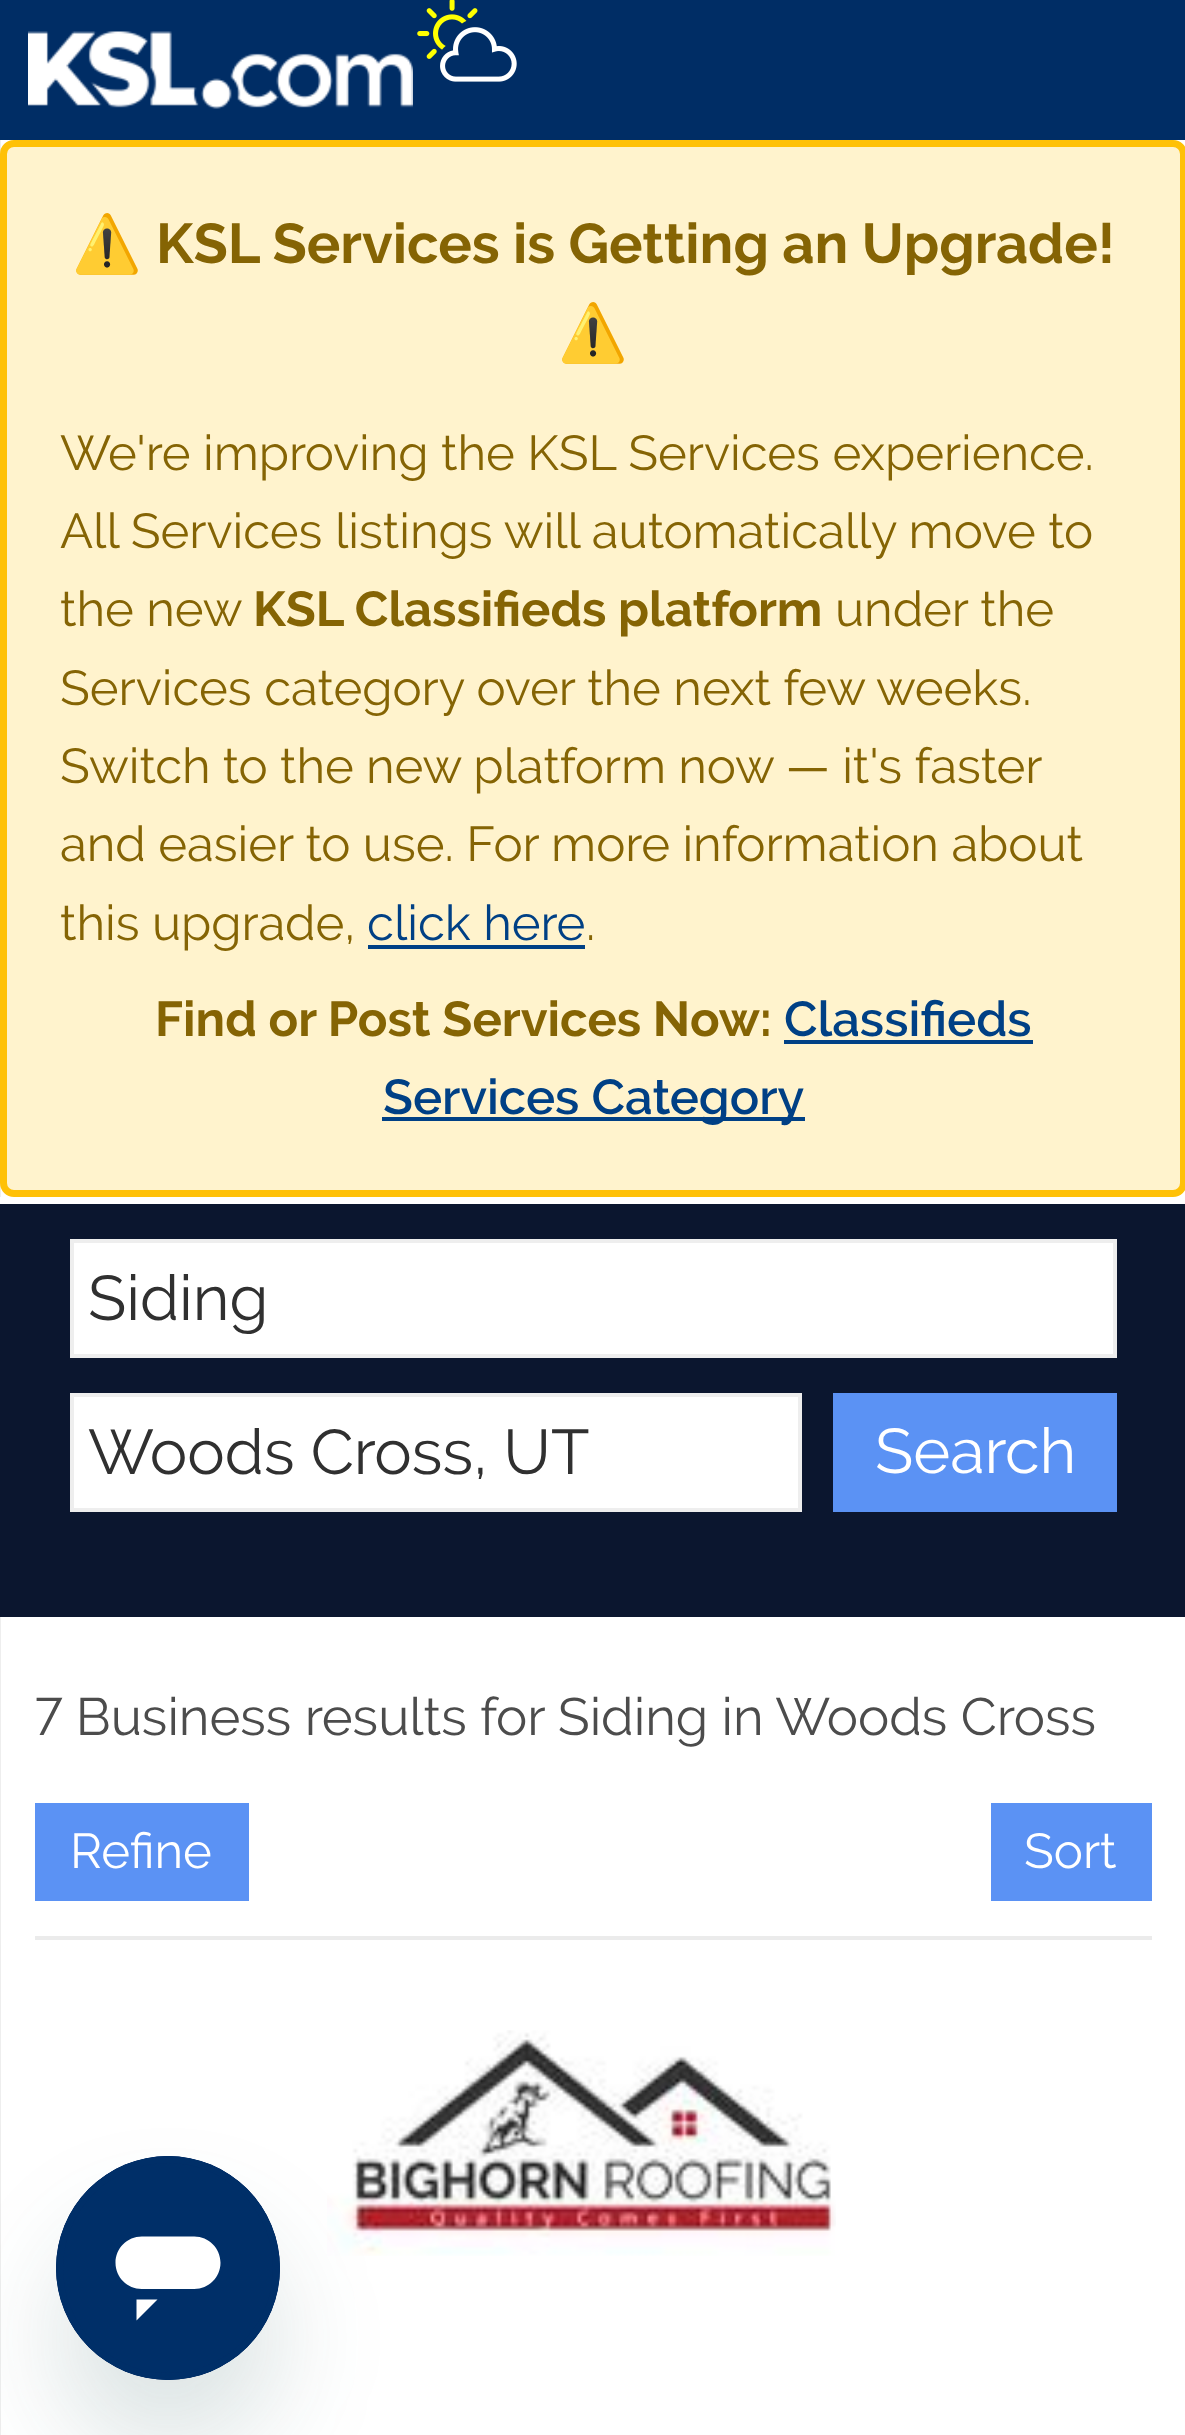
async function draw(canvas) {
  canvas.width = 1185;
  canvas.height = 2435;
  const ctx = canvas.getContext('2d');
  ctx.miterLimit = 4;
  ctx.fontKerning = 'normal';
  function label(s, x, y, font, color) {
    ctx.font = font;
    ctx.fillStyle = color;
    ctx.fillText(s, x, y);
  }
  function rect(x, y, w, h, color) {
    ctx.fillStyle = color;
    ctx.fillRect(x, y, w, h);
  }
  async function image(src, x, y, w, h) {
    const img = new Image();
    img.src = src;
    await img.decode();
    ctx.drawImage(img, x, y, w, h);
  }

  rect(0, 0, 1185, 2435, '#fff');
  rect(0, 0, 1185, 140, '#002d65');
  await image('assets/img1.png', 28, 31, 385, 78);
  await image('assets/img2.png', 417, 0, 100, 82);
  rect(0, 140, 1, 2295, '#eee');
  ctx.fillStyle = '#fff3cd';
  ctx.beginPath();
  ctx.roundRect(3.5, 143.5, 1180, 1050, 10.5);
  ctx.fill();
  ctx.strokeStyle = '#ffc107';
  ctx.lineWidth = 7;
  ctx.stroke();
  label('⚠️', 72, 263, '56px Noto Color Emoji', '#856404');
  label('KSL Services is Getting an Upgrade!', 156, 263, 'bold 56px Raleway', '#856404');
  label('⚠️', 558, 352, '56px Noto Color Emoji', '#856404');
  label('We\'re improving the KSL Services experience.', 60, 470, '49px Raleway', '#856404');
  label('All Services listings will automatically move to', 60, 548, '49px Raleway', '#856404');
  label('the new', 60, 626, '49px Raleway', '#856404');
  label('KSL Classifieds platform', 253, 626, 'bold 49px Raleway', '#856404');
  label('under the', 835, 626, '49px Raleway', '#856404');
  label('Services category over the next few weeks.', 60, 705, '49px Raleway', '#856404');
  ctx.wordSpacing = '-0.25px';
  label('Switch to the new platform now — it\'s faster', 60, 783, '49px Raleway', '#856404');
  ctx.wordSpacing = '0px';
  label('and easier to use. For more information about', 60, 861, '49px Raleway', '#856404');
  label('this upgrade,', 60, 940, '49px Raleway', '#856404');
  label('click here', 367, 940, '49px Raleway', '#004085');
  rect(368, 945, 217, 4, '#004085');
  label('.', 586, 940, '49px Raleway', '#856404');
  label('Find or Post Services Now:', 155, 1036, 'bold 49px Raleway', '#856404');
  label('Classifieds', 784, 1036, '600 49px Raleway', '#004085');
  rect(784, 1040, 249, 4, '#004085');
  rect(382, 1117, 423, 4, '#004085');
  label('Services Category', 383, 1114, '600 49px Raleway', '#004085');
  rect(0, 1204, 1185, 413, '#0b162f');
  rect(0, 1197, 1, 7, '#fff');
  ctx.beginPath();
  ctx.rect(72, 1241, 1043, 115);
  ctx.fill();
  ctx.strokeStyle = '#eee';
  ctx.lineWidth = 4;
  ctx.stroke();
  label('Siding', 88, 1320, '63px Raleway', '#303030');
  ctx.fillStyle = '#fff';
  ctx.beginPath();
  ctx.rect(72, 1395, 728, 115);
  ctx.fill();
  ctx.stroke();
  label('Woods Cross, UT', 88, 1474, '63px Raleway', '#303030');
  rect(833, 1393, 284, 119, '#5b92f4');
  label('Search', 875, 1473, '63px Raleway', '#fff');
  rect(35, 1936, 1117, 4, '#ebebeb');
  label('7 Business results for Siding in Woods Cross', 35, 1735, '52.5px Raleway', '#4c4c4c');
  rect(35, 1803, 214, 98, '#5b92f4');
  label('Refine', 70, 1868, '49px Raleway', '#fff');
  rect(991, 1803, 161, 98, '#5b92f4');
  label('Sort', 1024, 1868, '49px Raleway', '#fff');
  await image('assets/img3.png', 327, 2030, 509, 226);
  ctx.fillStyle = '#17494d26';
  ctx.filter = 'blur(52.5px)';
  ctx.beginPath();
  ctx.roundRect(56, 2226, 224, 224, 112);
  ctx.fill();
  ctx.filter = 'none';
  await image('assets/img4.png', 56, 2156, 224, 224);
}

draw(document.querySelector('canvas'));
